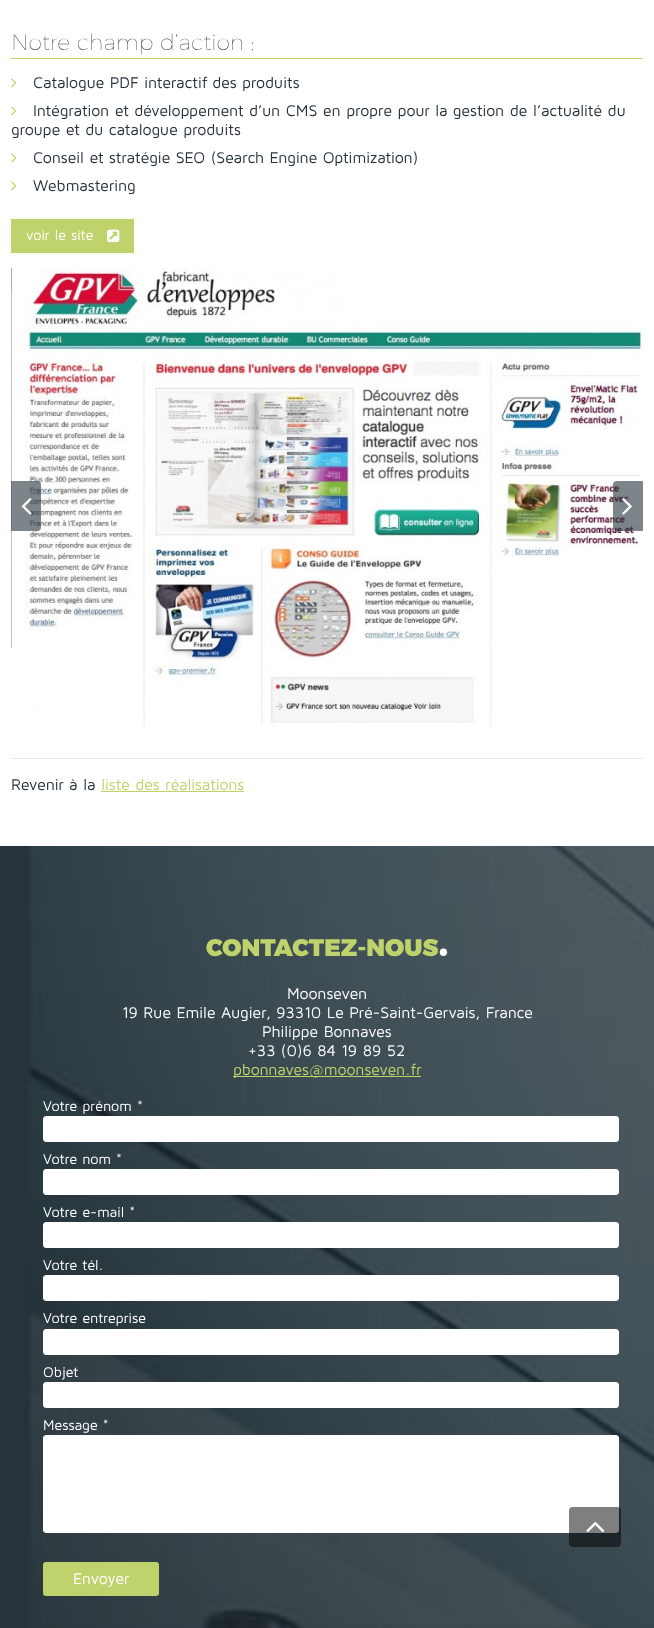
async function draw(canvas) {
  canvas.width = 654;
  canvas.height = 1628;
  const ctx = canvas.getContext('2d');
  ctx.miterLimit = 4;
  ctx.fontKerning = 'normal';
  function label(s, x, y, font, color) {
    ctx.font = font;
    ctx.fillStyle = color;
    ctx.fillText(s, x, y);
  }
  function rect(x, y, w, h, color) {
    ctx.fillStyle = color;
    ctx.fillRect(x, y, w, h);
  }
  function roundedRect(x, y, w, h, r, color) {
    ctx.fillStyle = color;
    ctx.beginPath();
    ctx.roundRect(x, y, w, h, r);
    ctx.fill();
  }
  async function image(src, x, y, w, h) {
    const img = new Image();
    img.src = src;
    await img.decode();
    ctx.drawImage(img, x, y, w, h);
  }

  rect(0, 0, 654, 1628, '#fff');
  rect(11, 58, 632, 1, '#bfd36c');
  label('Notre champ d’action :', 11, 50, '100 22px Montserrat', '#27333c');
  await image('assets/img1.png', 11, 78, 6, 10);
  label('Catalogue PDF interactif des produits', 33, 88, '16px Maven Pro', '#27333c');
  await image('assets/img1.png', 11, 106, 6, 10);
  label('Intégration et développement d’un CMS en propre pour la gestion de l’actualité du', 33, 116, '16px Maven Pro', '#27333c');
  label('groupe et du catalogue produits', 11, 135, '16px Maven Pro', '#27333c');
  await image('assets/img1.png', 11, 153, 6, 10);
  label('Conseil et stratégie SEO (Search Engine Optimization)', 33, 163, '16px Maven Pro', '#27333c');
  await image('assets/img1.png', 11, 181, 6, 10);
  label('Webmastering', 33, 191, '16px Maven Pro', '#27333c');
  rect(11, 219, 123, 34, '#bfd36c');
  label('voir le site', 26, 240, '14.5px Maven Pro', '#fff');
  await image('assets/img2.png', 107, 229, 13, 13);
  await image('assets/img3.png', 11, 268, 1, 380);
  await image('assets/img4.png', 11, 268, 632, 460);
  ctx.fillStyle = '#27333c99';
  ctx.beginPath();
  ctx.roundRect(11, 481, 30, 50, [0, 4, 4, 0]);
  ctx.fill();
  await image('assets/img5.png', 21, 498, 11, 17);
  ctx.beginPath();
  ctx.roundRect(613, 481, 30, 50, [4, 0, 0, 4]);
  ctx.fill();
  await image('assets/img6.png', 622, 498, 10, 17);
  rect(11, 758, 632, 1, '#e6e6e6');
  label('Revenir à la', 11, 790, '16px Maven Pro', '#27333c');
  label('liste des réalisations', 101, 790, '16px Maven Pro', '#bfd36c');
  rect(101, 791, 143, 1, '#bfd36c');
  await image('assets/img7.png', 0, 846, 654, 782);
  label('CONTACTEZ-NOUS', 206, 956, '900 24px Montserrat', '#bfd36c');
  label('•', 439, 959, '900 24px Montserrat', '#fff');
  label('Moonseven', 287, 999, '16px Maven Pro', '#fff');
  label('19 Rue Emile Augier, 93310 Le Pré-Saint-Gervais, France', 122, 1018, '16px Maven Pro', '#fff');
  label('Philippe Bonnaves', 262, 1037, '16px Maven Pro', '#fff');
  label('+33 (0)6 84 19 89 52', 248, 1056, '16px Maven Pro', '#fff');
  rect(233, 1076, 188, 1, '#bfd36c');
  label('pbonnaves@moonseven.fr', 233, 1075, '16px Maven Pro', '#bfd36c');
  label('Votre prénom *', 43, 1111, '14.5px Maven Pro', '#fff');
  ctx.beginPath();
  ctx.roundRect(43.5, 1116.5, 575, 25, 2.5);
  ctx.fill();
  ctx.strokeStyle = '#fff';
  ctx.stroke();
  label('Votre nom *', 43, 1164, '14.5px Maven Pro', '#fff');
  ctx.beginPath();
  ctx.roundRect(43.5, 1169.5, 575, 25, 2.5);
  ctx.fill();
  ctx.stroke();
  label('Votre e-mail *', 43, 1217, '14.5px Maven Pro', '#fff');
  ctx.beginPath();
  ctx.roundRect(43.5, 1222.5, 575, 25, 2.5);
  ctx.fill();
  ctx.stroke();
  label('Votre tél.', 43, 1270, '14.5px Maven Pro', '#fff');
  ctx.beginPath();
  ctx.roundRect(43.5, 1275.5, 575, 25, 2.5);
  ctx.fill();
  ctx.stroke();
  label('Votre entreprise', 43, 1323, '14.5px Maven Pro', '#fff');
  ctx.beginPath();
  ctx.roundRect(43.5, 1329.5, 575, 25, 2.5);
  ctx.fill();
  ctx.stroke();
  label('Objet', 43, 1377, '14.5px Maven Pro', '#fff');
  ctx.beginPath();
  ctx.roundRect(43.5, 1382.5, 575, 25, 2.5);
  ctx.fill();
  ctx.stroke();
  label('Message *', 43, 1430, '14.5px Maven Pro', '#fff');
  ctx.beginPath();
  ctx.roundRect(43.5, 1435.5, 575, 97, 2.5);
  ctx.fill();
  ctx.stroke();
  roundedRect(43, 1562, 116, 34, 3, '#bfd36c');
  label('Envoyer', 73, 1584, '16px Maven Pro', '#fff');
  roundedRect(569, 1507, 52, 40, 4, '#00000080');
  await image('assets/img8.png', 586, 1521, 19, 12);
}

draw(document.querySelector('canvas'));
